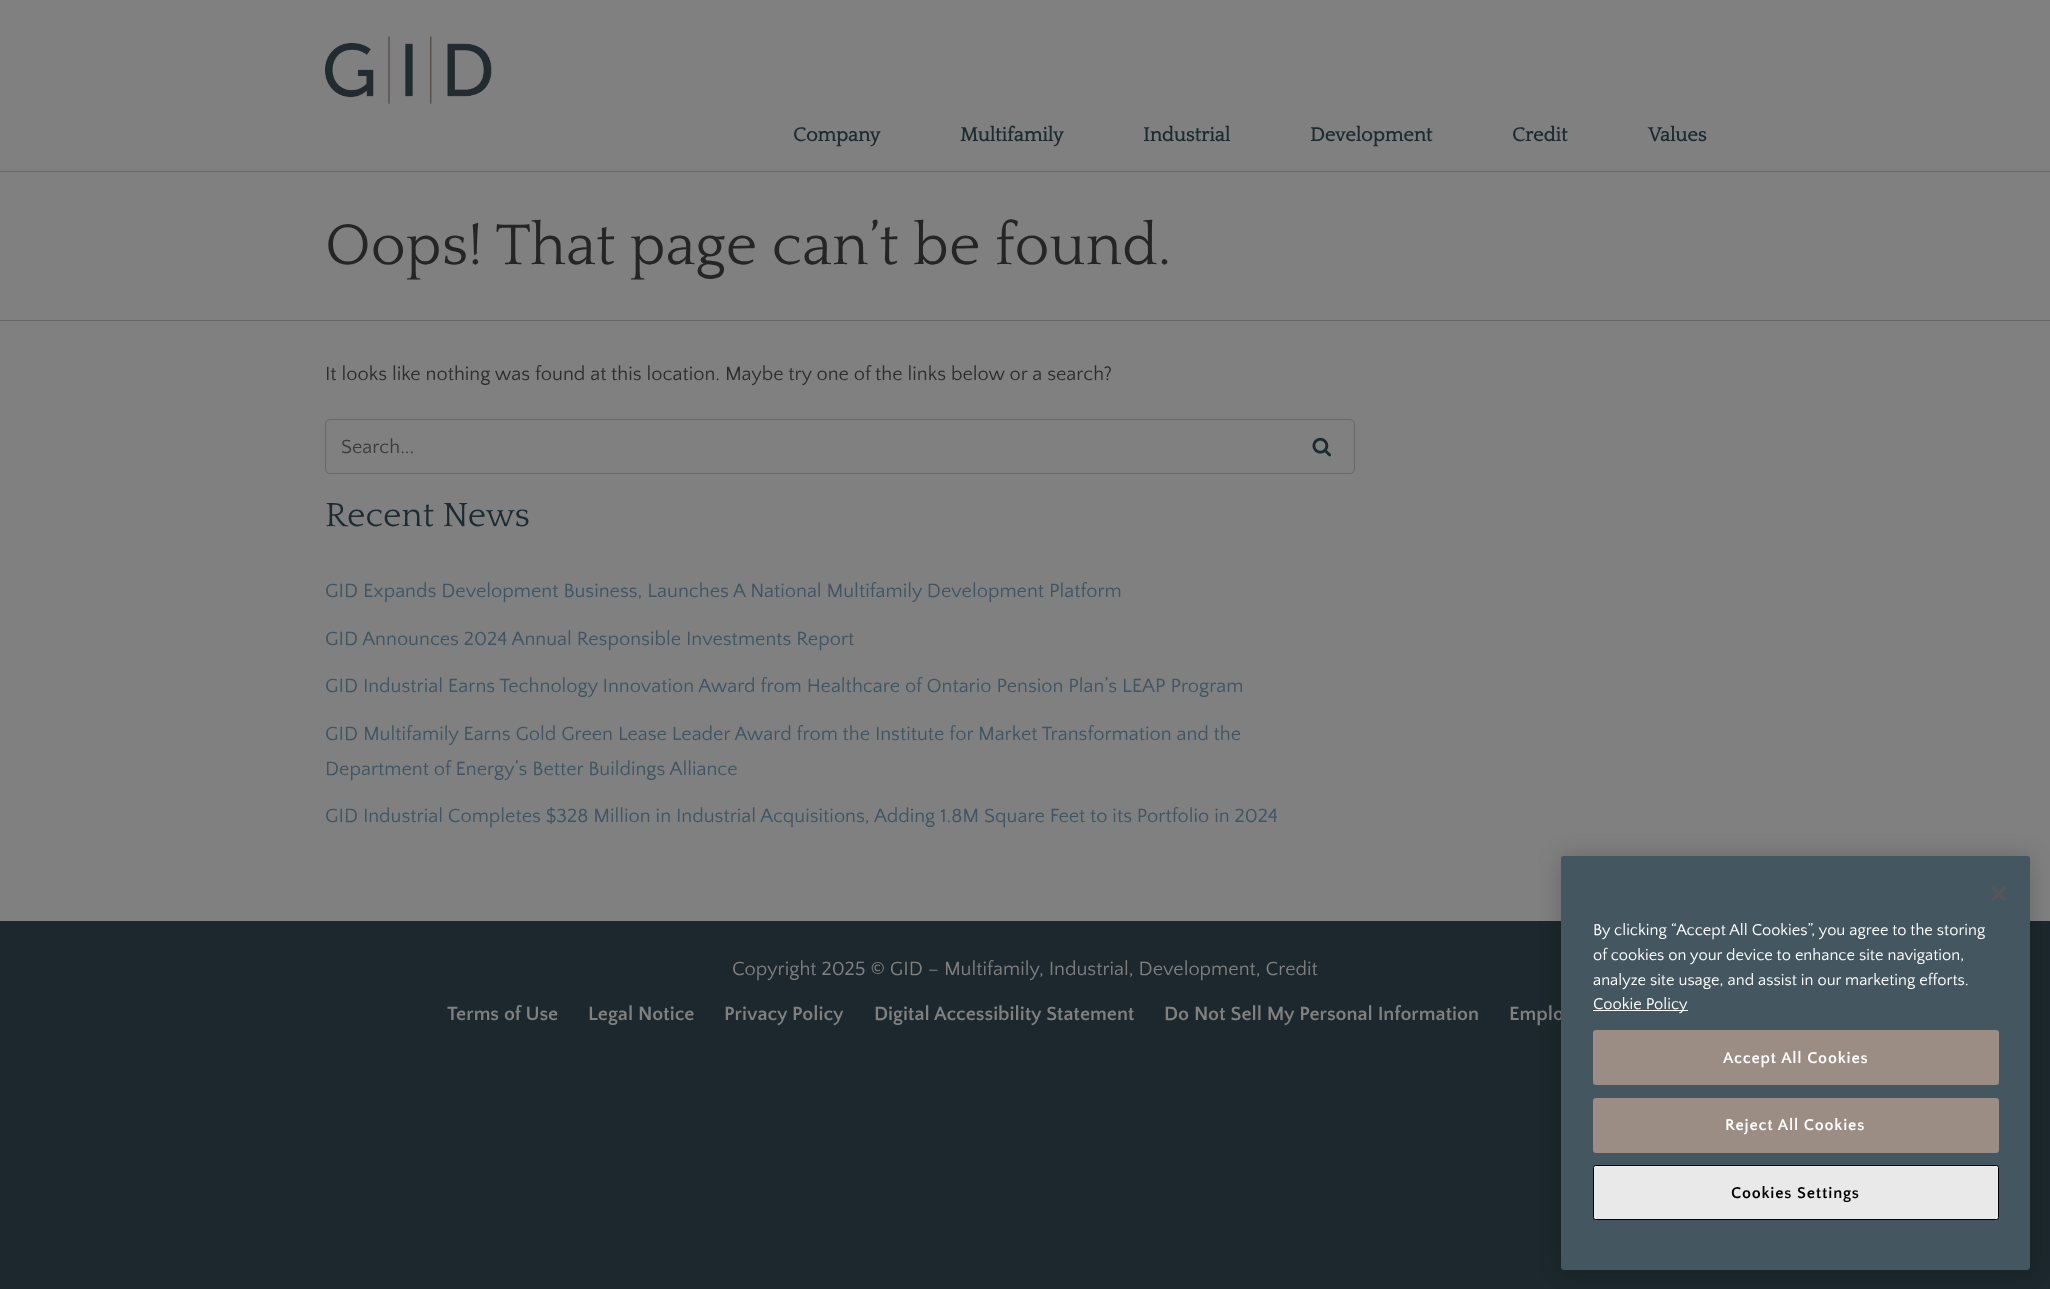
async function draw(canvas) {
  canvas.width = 2050;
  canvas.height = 1289;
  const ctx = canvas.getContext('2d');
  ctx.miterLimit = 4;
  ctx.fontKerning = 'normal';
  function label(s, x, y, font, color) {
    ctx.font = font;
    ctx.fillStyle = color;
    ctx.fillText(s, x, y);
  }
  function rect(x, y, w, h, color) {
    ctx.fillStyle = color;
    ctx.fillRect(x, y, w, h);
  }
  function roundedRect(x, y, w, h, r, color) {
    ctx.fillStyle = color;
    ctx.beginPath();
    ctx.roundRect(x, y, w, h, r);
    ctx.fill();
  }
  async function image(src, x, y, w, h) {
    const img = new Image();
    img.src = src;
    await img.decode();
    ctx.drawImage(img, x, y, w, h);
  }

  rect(0, 0, 2050, 1289, '#1c282d');
  rect(0, 0, 2050, 921, '#808080');
  rect(0, 171, 2050, 1, '#696969');
  await image('assets/img1.png', 325, 36, 167, 68);
  label('Company', 793, 141, 'bold 20px Quattrocento', '#1b2b31');
  label('Multifamily', 960, 141, 'bold 20px Quattrocento', '#1b2b31');
  label('Industrial', 1143, 141, 'bold 20px Quattrocento', '#1b2b31');
  label('Development', 1310, 141, 'bold 20px Quattrocento', '#1b2b31');
  label('Credit', 1512, 141, 'bold 20px Quattrocento', '#1b2b31');
  label('Values', 1648, 141, 'bold 20px Quattrocento', '#1b2b31');
  rect(0, 320, 2050, 1, '#696969');
  label('Oops! That page can’t be found.', 325, 264, '60px Quattrocento', '#252525');
  label('It looks like nothing was found at this location. Maybe try one of the links below or a search?', 325, 380, '20px Quattrocento Sans', '#2d2d2d');
  ctx.beginPath();
  ctx.roundRect(325.5, 419.5, 1029, 54, 4.5);
  ctx.strokeStyle = '#696969';
  ctx.stroke();
  label('Search...', 341, 453, '20px Quattrocento Sans', '#3b3b3b');
  await image('assets/img2.png', 1312, 437, 19, 20);
  label('Recent News', 325, 526, '35px Quattrocento', '#1b2b31');
  label('GID Expands Development Business, Launches A National Multifamily Development Platform', 325, 597, '20px Quattrocento Sans', '#3f5563');
  label('GID Announces 2024 Annual Responsible Investments Report', 325, 645, '20px Quattrocento Sans', '#3f5563');
  label('GID Industrial Earns Technology Innovation Award from Healthcare of Ontario Pension Plan’s LEAP Program', 325, 692, '20px Quattrocento Sans', '#3f5563');
  label('GID Multifamily Earns Gold Green Lease Leader Award from the Institute for Market Transformation and the', 325, 740, '20px Quattrocento Sans', '#3f5563');
  label('Department of Energy’s Better Buildings Alliance', 325, 775, '20px Quattrocento Sans', '#3f5563');
  label('GID Industrial Completes $328 Million in Industrial Acquisitions, Adding 1.8M Square Feet to its Portfolio in 2024', 325, 822, '20px Quattrocento Sans', '#3f5563');
  label('Copyright 2025 © GID – Multifamily, Industrial, Development, Credit', 732, 975, '20px Quattrocento Sans', '#808080');
  label('Terms of Use', 447, 1020, 'bold 20px Quattrocento Sans', '#808080');
  label('Legal Notice', 588, 1020, 'bold 20px Quattrocento Sans', '#808080');
  label('Privacy Policy', 724, 1020, 'bold 20px Quattrocento Sans', '#808080');
  label('Digital Accessibility Statement', 874, 1020, 'bold 20px Quattrocento Sans', '#808080');
  label('Do Not Sell My Personal Information', 1164, 1020, 'bold 20px Quattrocento Sans', '#808080');
  label('Emplo', 1509, 1020, 'bold 20px Quattrocento Sans', '#808080');
  ctx.fillStyle = '#00000033';
  ctx.filter = 'blur(11px)';
  ctx.beginPath();
  ctx.roundRect(1561, 856, 469, 414, 3);
  ctx.fill();
  ctx.filter = 'none';
  roundedRect(1561, 856, 469, 414, 3, '#445660');
  await image('assets/img3.png', 1991, 886, 15, 15);
  label('By clicking “Accept All Cookies”, you agree to the storing', 1593, 935, '16.4px Quattrocento Sans', '#fff');
  label('of cookies on your device to enhance site navigation,', 1593, 960, '16.4px Quattrocento Sans', '#fff');
  label('analyze site usage, and assist in our marketing efforts.', 1593, 985, '16.4px Quattrocento Sans', '#fff');
  rect(1593, 1010, 95, 1, '#fff');
  label('Cookie Policy', 1593, 1009, '16.4px Quattrocento Sans', '#fff');
  ctx.fillStyle = '#9b8c84';
  ctx.beginPath();
  ctx.roundRect(1593.5, 1030.5, 405, 54, 2);
  ctx.fill();
  ctx.strokeStyle = '#9b8c84';
  ctx.stroke();
  ctx.letterSpacing = '0.8px';
  label('Accept All Cookies', 1723, 1063, 'bold 16.4px Quattrocento Sans', '#fff');
  ctx.fillStyle = '#9b8c84';
  ctx.beginPath();
  ctx.roundRect(1593.5, 1098.5, 405, 54, 2);
  ctx.fill();
  ctx.stroke();
  label('Reject All Cookies', 1725, 1130, 'bold 16.4px Quattrocento Sans', '#fff');
  ctx.fillStyle = '#e9e9e9';
  ctx.beginPath();
  ctx.roundRect(1593.5, 1165.5, 405, 54, 2);
  ctx.fill();
  ctx.strokeStyle = '#000';
  ctx.stroke();
  label('Cookies Settings', 1731, 1198, 'bold 16.4px Quattrocento Sans', '#000');
}

draw(document.querySelector('canvas'));
